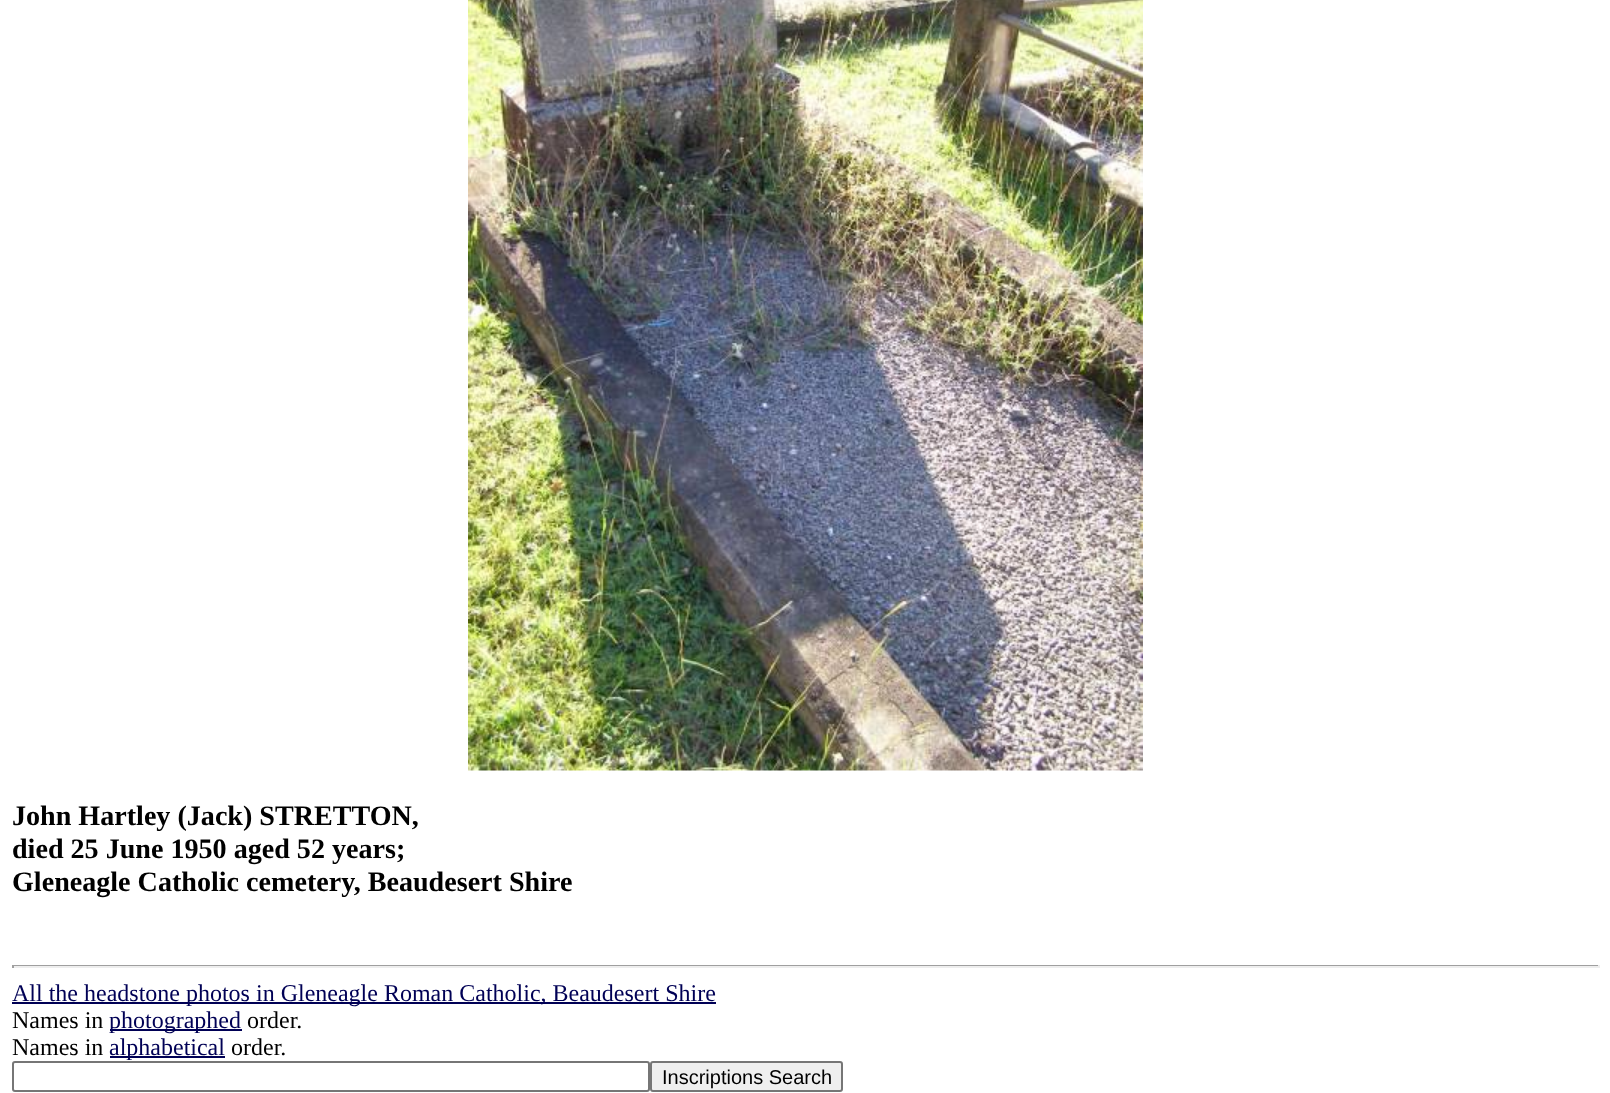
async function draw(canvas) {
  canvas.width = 1610;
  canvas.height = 1093;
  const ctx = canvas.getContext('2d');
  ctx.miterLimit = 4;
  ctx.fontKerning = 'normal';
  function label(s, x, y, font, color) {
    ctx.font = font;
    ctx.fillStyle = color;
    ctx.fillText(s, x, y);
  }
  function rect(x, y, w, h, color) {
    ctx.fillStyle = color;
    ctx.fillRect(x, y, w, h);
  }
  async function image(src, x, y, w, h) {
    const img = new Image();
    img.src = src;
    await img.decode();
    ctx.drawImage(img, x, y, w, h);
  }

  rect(0, 0, 1610, 1093, '#fff');
  await image('assets/img1.png', 468, 0, 675, 771);
  label('John Hartley (Jack) STRETTON,', 12, 825, 'bold 28.1px Liberation Serif', '#000');
  label('died 25 June 1950 aged 52 years;', 12, 858, 'bold 28.1px Liberation Serif', '#000');
  label('Gleneagle Catholic cemetery, Beaudesert Shire', 12, 891, 'bold 28.1px Liberation Serif', '#000');
  rect(12, 965, 1587, 1, '#9f9f9f');
  rect(1598, 965, 2, 3, '#eee');
  rect(12, 966, 1587, 2, '#eee');
  rect(12, 965, 2, 3, '#9f9f9f');
  rect(12, 1002, 704, 2, '#005');
  label('All the headstone photos in Gleneagle Roman Catholic, Beaudesert Shire', 12, 1001, '24px Liberation Serif', '#005');
  label('Names in', 12, 1028, '24px Liberation Serif', '#000');
  rect(110, 1029, 132, 2, '#005');
  label('photographed', 109, 1028, '24px Liberation Serif', '#005');
  label('order.', 247, 1028, '24px Liberation Serif', '#000');
  label('Names in', 12, 1055, '24px Liberation Serif', '#000');
  rect(110, 1056, 115, 2, '#005');
  label('alphabetical', 109, 1055, '24px Liberation Serif', '#005');
  label('order.', 231, 1055, '24px Liberation Serif', '#000');
  ctx.beginPath();
  ctx.roundRect(13, 1062, 636, 29, 2);
  ctx.strokeStyle = '#767676';
  ctx.lineWidth = 2;
  ctx.stroke();
  ctx.fillStyle = '#efefef';
  ctx.beginPath();
  ctx.roundRect(651, 1062, 191, 29, 2);
  ctx.fill();
  ctx.stroke();
  label('Inscriptions Search', 662, 1084, '20px Liberation Sans', '#000');
}

draw(document.querySelector('canvas'));
